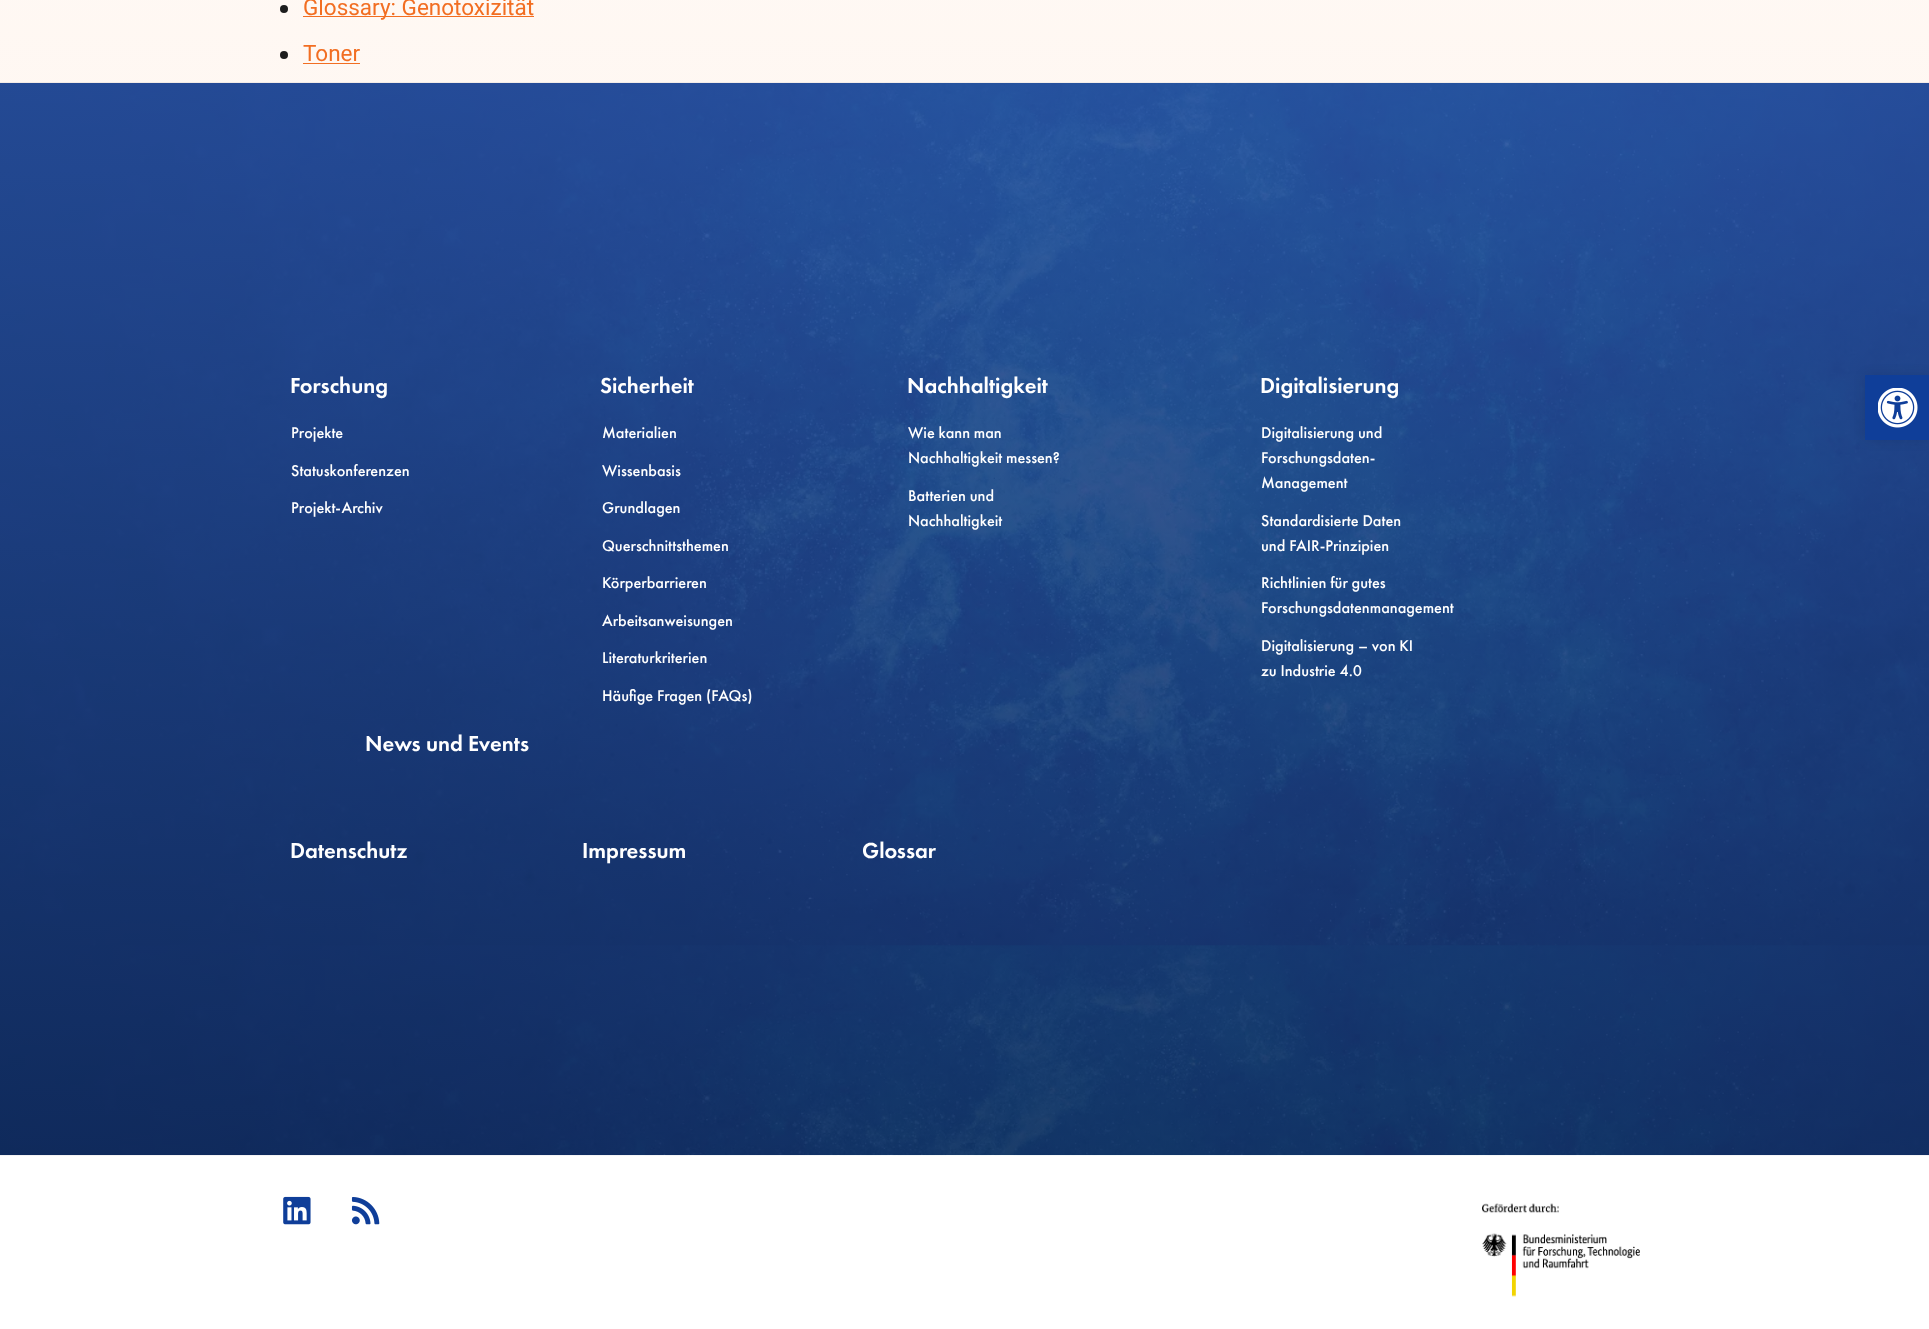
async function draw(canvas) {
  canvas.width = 1929;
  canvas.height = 1329;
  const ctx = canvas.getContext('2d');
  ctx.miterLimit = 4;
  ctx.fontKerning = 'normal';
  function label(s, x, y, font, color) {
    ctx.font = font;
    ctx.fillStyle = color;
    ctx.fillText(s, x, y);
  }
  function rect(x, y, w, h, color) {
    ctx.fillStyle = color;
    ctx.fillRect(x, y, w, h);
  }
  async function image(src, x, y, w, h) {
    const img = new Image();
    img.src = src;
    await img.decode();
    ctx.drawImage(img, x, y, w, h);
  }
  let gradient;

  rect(0, 0, 1929, 1329, '#fff');
  gradient = ctx.createLinearGradient(965, -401, 965, 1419);
  gradient.addColorStop(0, '#fffcf9');
  gradient.addColorStop(1, '#feebe0');
  ctx.fillStyle = gradient;
  ctx.fillRect(0, 0, 1929, 83);
  ctx.fillStyle = '#1d1d1d';
  ctx.beginPath();
  ctx.arc(284, 9, 4, 0, 2 * Math.PI);
  ctx.fill();
  rect(303, 16, 231, 1, '#f26e22');
  label('Glossary: Genotoxizität', 303, 15, '22.5px Roboto', '#f26e22');
  ctx.fillStyle = '#1d1d1d';
  ctx.beginPath();
  ctx.arc(284, 55, 4, 0, 2 * Math.PI);
  ctx.fill();
  label('Toner', 303, 61, '22.5px Roboto', '#f26e22');
  rect(303, 63, 57, 1, '#f26e22');
  rect(0, 83, 1929, 1072, '#0f3e99');
  await image('assets/img1.png', 0, 82, 1929, 1074);
  gradient = ctx.createLinearGradient(965, 82, 965, 1155);
  gradient.addColorStop(0, '#3a62ab80');
  gradient.addColorStop(1, '#12233a80');
  ctx.fillStyle = gradient;
  ctx.fillRect(0, 83, 1929, 1072);
  label('Forschung', 290, 393, '500 22.5px Futura PT', '#fff');
  label('Projekte', 291, 438, '500 16.25px "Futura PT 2"', '#fff');
  label('Statuskonferenzen', 291, 476, '500 16.25px "Futura PT 2"', '#fff');
  label('Projekt-Archiv', 291, 513, '500 16.25px "Futura PT 2"', '#fff');
  label('Sicherheit', 600, 393, '500 22.5px Futura PT', '#fff');
  label('Materialien', 602, 438, '500 16.25px "Futura PT 2"', '#fff');
  label('Wissenbasis', 602, 476, '500 16.25px "Futura PT 2"', '#fff');
  label('Grundlagen', 602, 513, '500 16.25px "Futura PT 2"', '#fff');
  label('Querschnittsthemen', 602, 551, '500 16.25px "Futura PT 2"', '#fff');
  label('Körperbarrieren', 602, 588, '500 16.25px "Futura PT 2"', '#fff');
  label('Arbeitsanweisungen', 602, 626, '500 16.25px "Futura PT 2"', '#fff');
  label('Literaturkriterien', 602, 663, '500 16.25px "Futura PT 2"', '#fff');
  label('Häufige Fragen (FAQs)', 602, 701, '500 16.25px "Futura PT 2"', '#fff');
  label('Nachhaltigkeit', 907, 393, '500 22.5px Futura PT', '#fff');
  label('Wie kann man', 908, 438, '500 16.25px "Futura PT 2"', '#fff');
  label('Nachhaltigkeit messen?', 908, 463, '500 16.25px "Futura PT 2"', '#fff');
  label('Batterien und', 908, 501, '500 16.25px "Futura PT 2"', '#fff');
  label('Nachhaltigkeit', 908, 526, '500 16.25px "Futura PT 2"', '#fff');
  label('Digitalisierung', 1260, 393, '500 22.5px Futura PT', '#fff');
  label('Digitalisierung und', 1261, 438, '500 16.25px "Futura PT 2"', '#fff');
  label('Forschungsdaten-', 1261, 463, '500 16.25px "Futura PT 2"', '#fff');
  label('Management', 1261, 488, '500 16.25px "Futura PT 2"', '#fff');
  label('Standardisierte Daten', 1261, 526, '500 16.25px "Futura PT 2"', '#fff');
  label('und FAIR-Prinzipien', 1261, 551, '500 16.25px "Futura PT 2"', '#fff');
  label('Richtlinien für gutes', 1261, 588, '500 16.25px "Futura PT 2"', '#fff');
  label('Forschungsdatenmanagement', 1261, 613, '500 16.25px "Futura PT 2"', '#fff');
  label('Digitalisierung – von KI', 1261, 651, '500 16.25px "Futura PT 2"', '#fff');
  label('zu Industrie 4.0', 1261, 676, '500 16.25px "Futura PT 2"', '#fff');
  label('News und Events', 365, 751, '500 22.5px Futura PT', '#fff');
  label('Datenschutz', 290, 858, '500 22.5px Futura PT', '#fff');
  label('Impressum', 582, 858, '500 22.5px Futura PT', '#fff');
  label('Glossar', 862, 858, '500 22.5px Futura PT', '#fff');
  await image('assets/img2.png', 283, 1196, 28, 29);
  await image('assets/img3.png', 351, 1197, 29, 28);
  await image('assets/img4.png', 1482, 1203, 158, 94);
  ctx.fillStyle = '#0000001a';
  ctx.filter = 'blur(6px)';
  ctx.beginPath();
  ctx.rect(1865, 375, 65, 65);
  ctx.fill();
  ctx.filter = 'none';
  rect(1865, 375, 64, 65, '#0f3e99');
  await image('assets/img5.png', 1878, 388, 40, 40);
}

draw(document.querySelector('canvas'));
